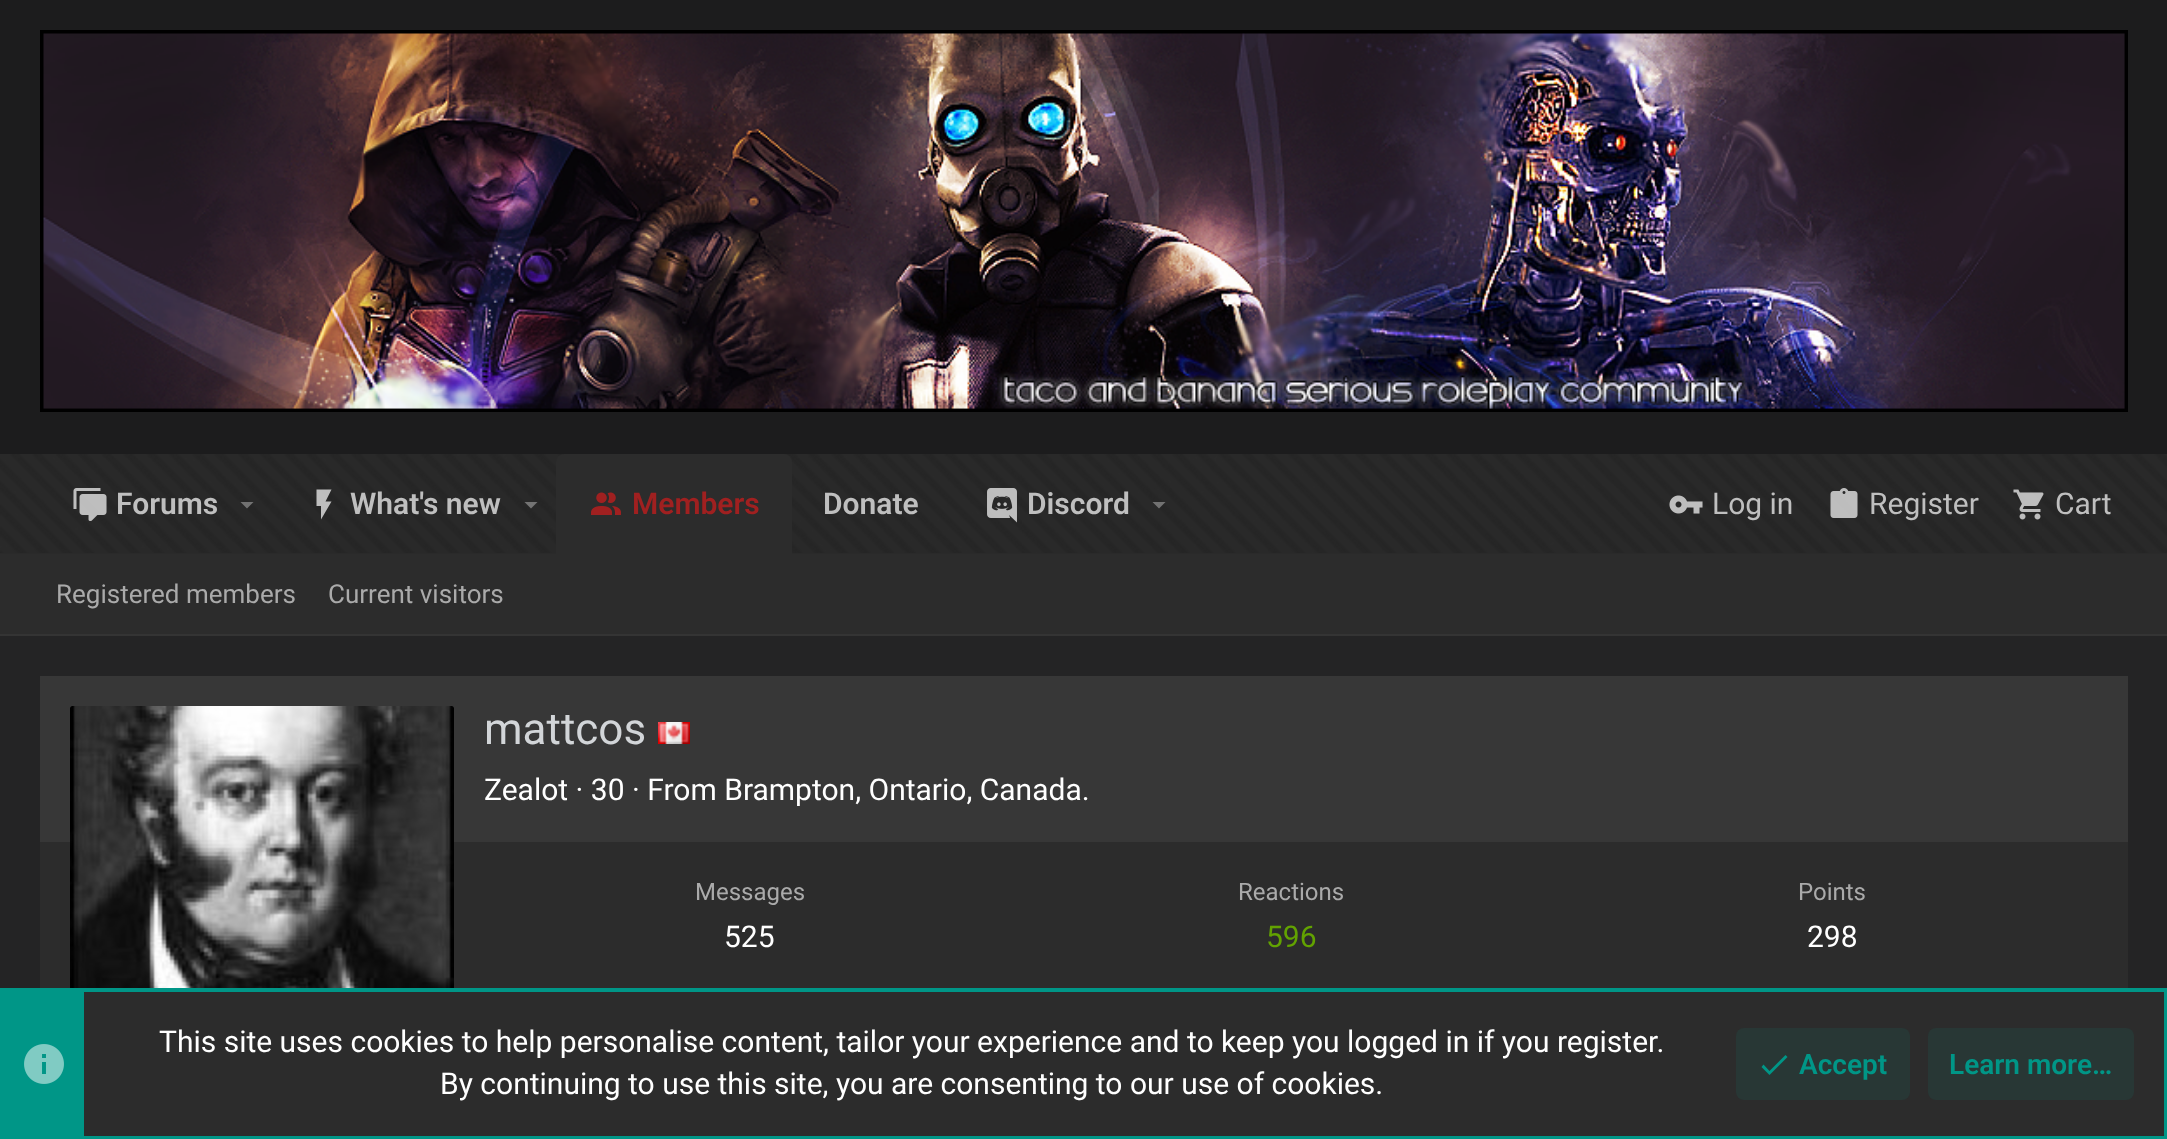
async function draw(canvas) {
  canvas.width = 2167;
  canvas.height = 1139;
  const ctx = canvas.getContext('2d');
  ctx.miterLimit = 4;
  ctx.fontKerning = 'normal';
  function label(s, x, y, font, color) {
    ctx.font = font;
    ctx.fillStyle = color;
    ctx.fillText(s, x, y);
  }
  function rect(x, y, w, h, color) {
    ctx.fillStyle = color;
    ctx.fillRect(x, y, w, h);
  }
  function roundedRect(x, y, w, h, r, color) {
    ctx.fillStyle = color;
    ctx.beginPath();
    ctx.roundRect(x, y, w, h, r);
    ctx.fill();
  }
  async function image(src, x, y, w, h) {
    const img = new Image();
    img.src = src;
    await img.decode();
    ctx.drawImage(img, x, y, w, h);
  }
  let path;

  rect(0, 0, 2167, 1139, '#242425');
  rect(0, 0, 2167, 454, '#1c1c1d');
  await image('assets/img1.png', 40, 30, 2088, 382);
  rect(0, 454, 2167, 100, '#2a2a2a');
  await image('assets/img2.png', 0, 454, 2167, 99);
  await image('assets/img3.png', 73, 488, 34, 33);
  label('Forums', 116, 514, '600 30px Roboto', '#bfbfbf');
  ctx.fillStyle = '#ffffff59';
  path = new Path2D('M240.5 502L247 508.5L253.5 502Z');
  ctx.fill(path);
  ctx.fillStyle = '#ffffffb3';
  path = new Path2D('M316.5 489.5V506H321V519.5L331.5 501.5H325.5L331.5 489.5Z');
  ctx.fill(path);
  label('What\'s new', 350, 514, '600 30px Roboto', '#bfbfbf');
  ctx.fillStyle = '#747474';
  path = new Path2D('M524.5 502L531 508.5L537.5 502Z');
  ctx.fill(path);
  ctx.fillStyle = '#2c2c2c';
  ctx.beginPath();
  ctx.roundRect(556, 454, 236, 100, [8, 8, 0, 0]);
  ctx.fill();
  await image('assets/img4.png', 591, 492, 30, 23);
  label('Members', 632, 514, '600 30px Roboto', '#a02020');
  label('Donate', 823, 514, '600 30px Roboto', '#bfbfbf');
  await image('assets/img5.png', 987, 488, 30, 35);
  label('Discord', 1027, 514, '600 30px Roboto', '#bfbfbf');
  ctx.fillStyle = '#ffffff59';
  path = new Path2D('M1152.5 502L1159 508.5L1165.5 502Z');
  ctx.fill(path);
  await image('assets/img6.png', 1669, 495, 34, 19);
  label('Log in', 1712, 514, '30px Roboto', '#bfbfbf');
  await image('assets/img7.png', 1830, 488, 28, 30);
  label('Register', 1869, 514, '30px Roboto', '#bfbfbf');
  await image('assets/img8.png', 2013, 489, 31, 31);
  label('Cart', 2055, 514, '30px Roboto', '#bfbfbf');
  rect(0, 554, 2167, 80, '#2c2c2c');
  rect(0, 634, 2167, 2, '#343434');
  label('Registered members', 56, 603, '26px Roboto', '#aaa');
  label('Current visitors', 328, 603, '26px Roboto', '#aaa');
  rect(40, 842, 2088, 146, '#2c2c2c');
  rect(40, 676, 2088, 166, '#373737');
  await image('assets/img9.png', 70, 706, 384, 282);
  label('mattcos', 484, 744, '44px Roboto', '#d2d5d8');
  await image('assets/img10.png', 658, 722, 32, 22);
  label('Zealot · 30 · From Brampton, Ontario, Canada.', 484, 800, '30px Roboto', '#fff');
  label('Messages', 695, 900, '24px Roboto', '#aaa');
  label('525', 724, 947, '30px Roboto', '#fff');
  label('Reactions', 1238, 900, '24px Roboto', '#aaa');
  label('596', 1266, 947, '30px Roboto', '#62a201');
  label('Points', 1798, 900, '24px Roboto', '#aaa');
  label('298', 1807, 947, '30px Roboto', '#fff');
  rect(84, 992, 2080, 144, '#2c2c2c');
  ctx.strokeStyle = '#009687';
  ctx.lineWidth = 4;
  ctx.strokeRect(2, 990, 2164, 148);
  rect(4, 992, 80, 144, '#009687');
  await image('assets/img11.png', 24, 1044, 40, 40);
  label('This site uses cookies to help personalise content, tailor your experience and to keep you logged in if you register.', 159, 1052, '30px Roboto', '#fff');
  label('By continuing to use this site, you are consenting to our use of cookies.', 440, 1094, '30px Roboto', '#fff');
  roundedRect(1736, 1028, 174, 72, 8, '#283735');
  ctx.fillStyle = '#009687';
  path = new Path2D('M1787.5 1057L1769.5 1075L1761.5 1067L1763.5 1064.5L1769.5 1071L1785.5 1055Z');
  ctx.fill(path);
  label('Accept', 1799, 1074, '600 28px Roboto', '#009687');
  roundedRect(1928, 1028, 206, 72, 8, '#283735');
  label('Learn more…', 1949, 1074, '600 28px Roboto', '#009687');
}

draw(document.querySelector('canvas'));
